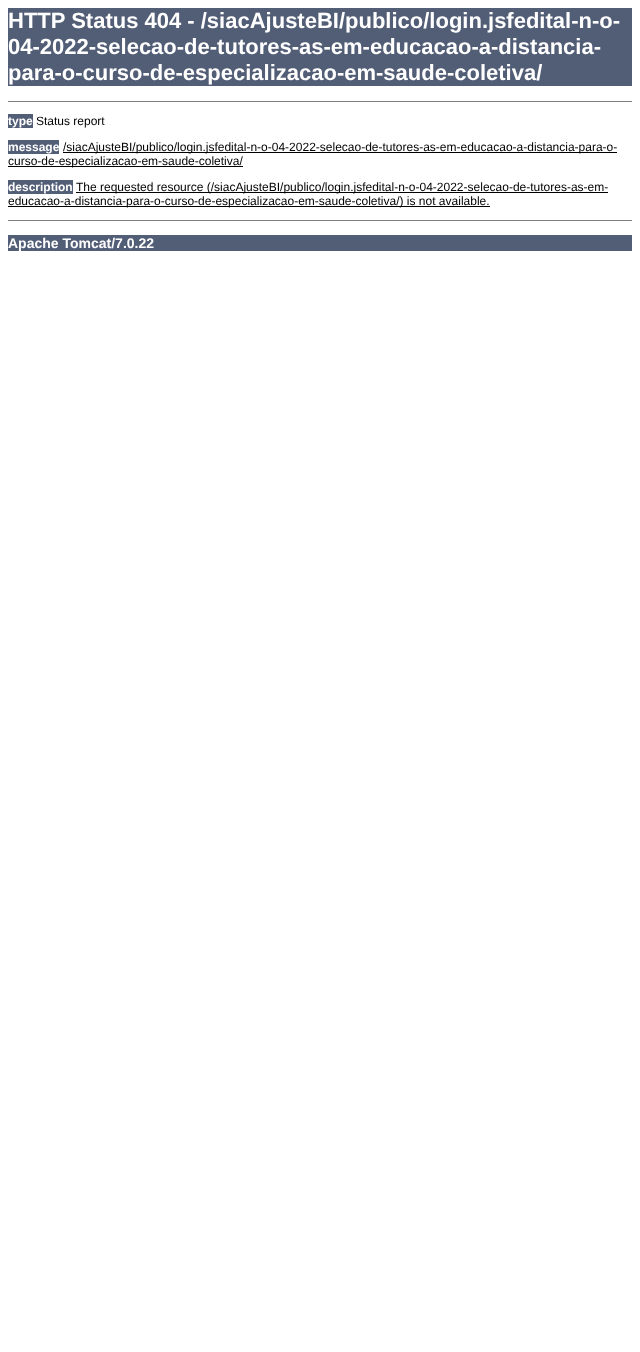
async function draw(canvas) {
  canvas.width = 640;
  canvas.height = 1352;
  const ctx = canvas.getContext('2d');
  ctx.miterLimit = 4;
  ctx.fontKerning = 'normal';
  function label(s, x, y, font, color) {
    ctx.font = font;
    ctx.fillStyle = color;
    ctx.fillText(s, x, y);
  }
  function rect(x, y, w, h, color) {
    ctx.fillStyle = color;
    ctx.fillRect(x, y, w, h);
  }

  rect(0, 0, 640, 1352, '#fff');
  rect(8, 8, 624, 78, '#525d76');
  label('HTTP Status 404 - /siacAjusteBI/publico/login.jsfedital-n-o-', 8, 28, 'bold 22px Liberation Sans', '#fff');
  label('04-2022-selecao-de-tutores-as-em-educacao-a-distancia-', 8, 54, 'bold 22px Liberation Sans', '#fff');
  label('para-o-curso-de-especializacao-em-saude-coletiva/', 8, 80, 'bold 22px Liberation Sans', '#fff');
  rect(8, 101, 624, 1, '#808080');
  rect(8, 114, 25, 14, '#525d76');
  label('type', 8, 125, 'bold 12px Liberation Sans', '#fff');
  label('Status report', 36, 125, '12px Liberation Sans', '#000');
  rect(8, 140, 51, 14, '#525d76');
  label('message', 8, 151, 'bold 12px Liberation Sans', '#fff');
  rect(63, 152, 554, 1, '#000');
  label('/siacAjusteBI/publico/login.jsfedital-n-o-04-2022-selecao-de-tutores-as-em-educacao-a-distancia-para-o-', 63, 151, '12px Liberation Sans', '#000');
  rect(8, 166, 235, 1, '#000');
  label('curso-de-especializacao-em-saude-coletiva/', 8, 165, '12px Liberation Sans', '#000');
  rect(8, 180, 65, 14, '#525d76');
  label('description', 8, 191, 'bold 12px Liberation Sans', '#fff');
  rect(76, 192, 532, 1, '#000');
  label('The requested resource (/siacAjusteBI/publico/login.jsfedital-n-o-04-2022-selecao-de-tutores-as-em-', 76, 191, '12px Liberation Sans', '#000');
  rect(8, 206, 482, 1, '#000');
  label('educacao-a-distancia-para-o-curso-de-especializacao-em-saude-coletiva/) is not available.', 8, 205, '12px Liberation Sans', '#000');
  rect(8, 220, 624, 1, '#808080');
  rect(8, 235, 624, 16, '#525d76');
  label('Apache Tomcat/7.0.22', 8, 248, 'bold 14px Liberation Sans', '#fff');
}

draw(document.querySelector('canvas'));
